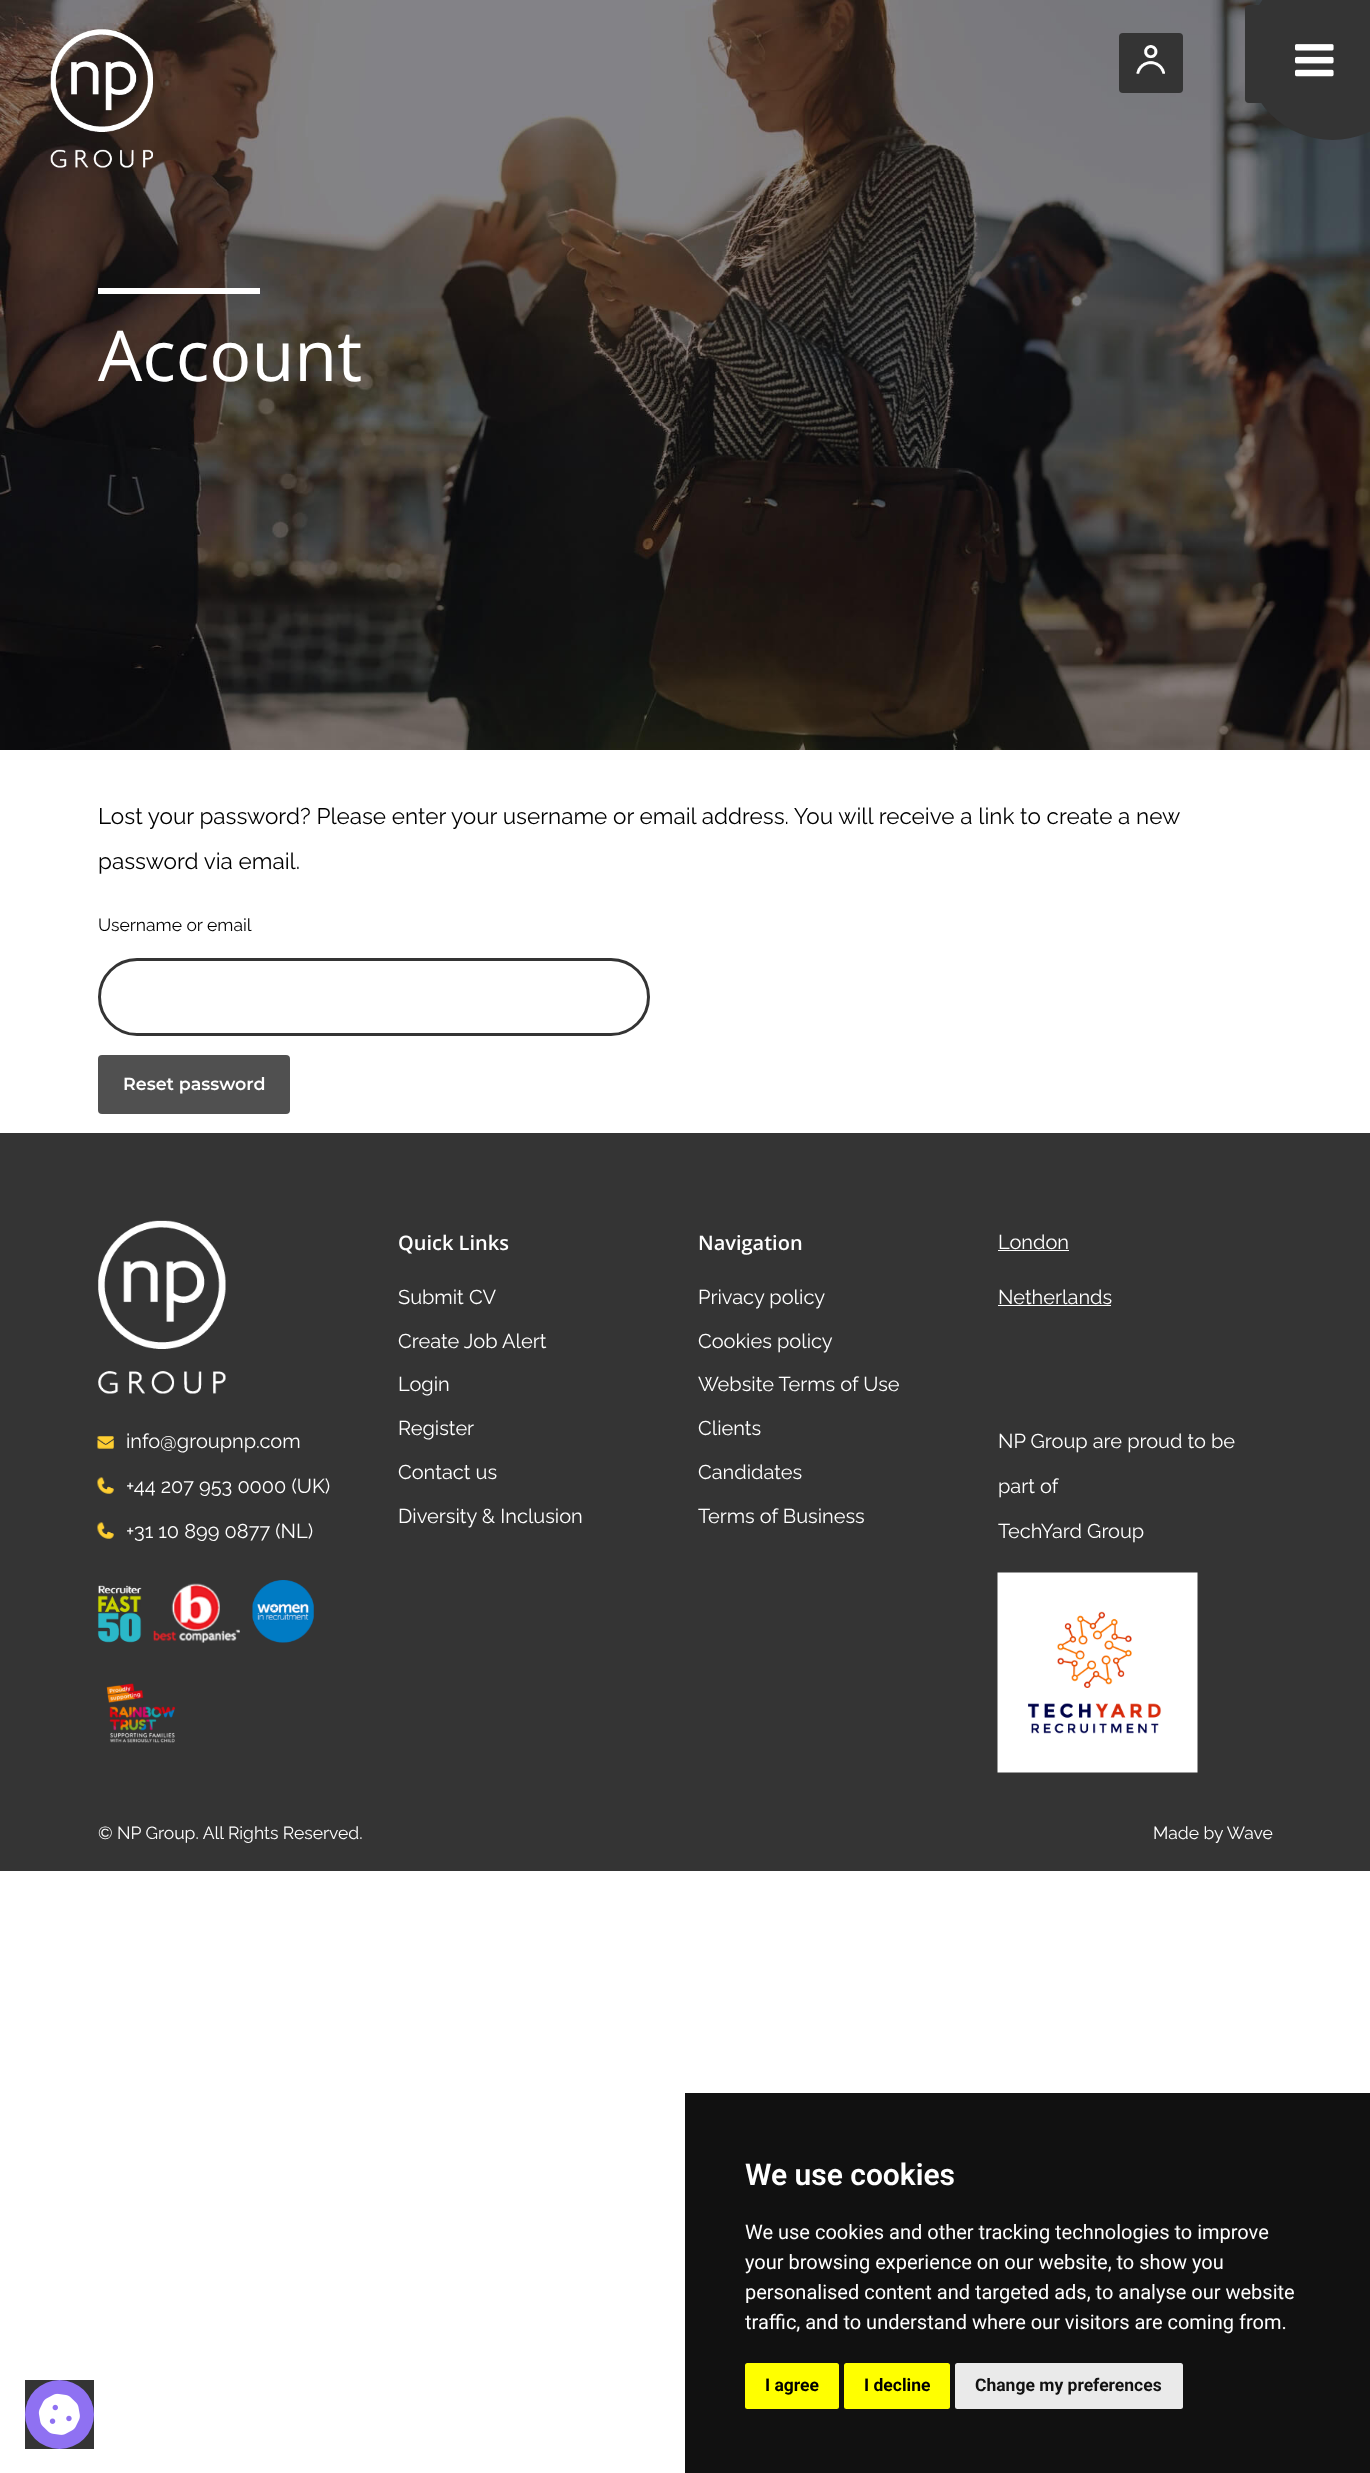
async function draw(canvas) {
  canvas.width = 1370;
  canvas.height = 2473;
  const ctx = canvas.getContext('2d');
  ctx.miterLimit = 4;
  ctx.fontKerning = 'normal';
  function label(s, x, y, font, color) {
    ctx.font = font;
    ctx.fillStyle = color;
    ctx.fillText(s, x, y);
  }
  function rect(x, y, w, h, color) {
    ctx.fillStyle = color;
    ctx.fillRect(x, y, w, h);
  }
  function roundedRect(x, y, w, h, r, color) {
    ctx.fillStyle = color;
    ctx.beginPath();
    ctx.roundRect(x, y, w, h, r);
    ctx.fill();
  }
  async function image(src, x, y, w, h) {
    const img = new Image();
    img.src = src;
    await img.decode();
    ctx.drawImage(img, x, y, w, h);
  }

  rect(0, 0, 1370, 2473, '#fff');
  await image('assets/img4.png', 0, 0, 1370, 750);
  await image('assets/img1.png', 50, 29, 103, 139);
  roundedRect(1119, 33, 64, 60, 4, '#343434');
  await image('assets/img2.png', 1136, 45, 29, 29);
  ctx.beginPath();
  ctx.arc(1332.5, 52.5, 87.5, 0, 2 * Math.PI);
  ctx.fill();
  ctx.beginPath();
  ctx.roundRect(1245, 5, 125, 98, [4, 0, 0, 4]);
  ctx.fill();
  await image('assets/img3.png', 1295, 44, 39, 33);
  rect(98, 288, 162, 6, '#fff');
  label('Account', 98, 381, '70px Open Sans', '#fff');
  label('Lost your password? Please enter your username or email address. You will receive a link to create a new', 98, 824, '22.5px Raleway', '#000');
  label('password via email.', 98, 869, '22.5px Raleway', '#000');
  label('Username or email', 98, 931, '17.5px Raleway', '#000');
  ctx.beginPath();
  ctx.roundRect(99.5, 959.5, 549, 75, 37.5);
  ctx.strokeStyle = '#343434';
  ctx.lineWidth = 3;
  ctx.stroke();
  roundedRect(98, 1055, 192, 59, 4, '#505050');
  label('Reset password', 123, 1090, '600 17.5px Montserrat', '#fff');
  rect(0, 1133, 1370, 738, '#343434');
  await image('assets/img5.png', 98, 1220, 128, 174);
  await image('assets/img6.png', 97, 1436, 17, 13);
  label('info@groupnp.com', 126, 1448, '20px Raleway', '#fff');
  await image('assets/img7.png', 97, 1477, 17, 17);
  label('+44 207 953 0000 (UK)', 126, 1493, '20px Raleway', '#fff');
  await image('assets/img7.png', 97, 1522, 17, 17);
  label('+31 10 899 0877 (NL)', 126, 1538, '20px Raleway', '#fff');
  await image('assets/img8.png', 97, 1585, 45, 58);
  await image('assets/img9.png', 153, 1583, 87, 60);
  await image('assets/img10.png', 252, 1580, 62, 63);
  await image('assets/img11.png', 106, 1683, 70, 60);
  label('Quick Links', 398, 1250, '600 20px Open Sans', '#fff');
  label('Submit CV', 398, 1304, '20px Raleway', '#fff');
  label('Create Job Alert', 398, 1348, '20px Raleway', '#fff');
  label('Login', 398, 1391, '20px Raleway', '#fff');
  label('Register', 398, 1435, '20px Raleway', '#fff');
  label('Contact us', 398, 1479, '20px Raleway', '#fff');
  label('Diversity & Inclusion', 398, 1523, '20px Raleway', '#fff');
  label('Navigation', 698, 1250, '600 20px Open Sans', '#fff');
  label('Privacy policy', 698, 1304, '20px Raleway', '#fff');
  label('Cookies policy', 698, 1348, '20px Raleway', '#fff');
  label('Website Terms of Use', 698, 1391, '20px Raleway', '#fff');
  label('Clients', 698, 1435, '20px Raleway', '#fff');
  label('Candidates', 698, 1479, '20px Raleway', '#fff');
  label('Terms of Business', 698, 1523, '20px Raleway', '#fff');
  label('London', 998, 1249, '20px Raleway', '#fff');
  rect(998, 1250, 71, 1, '#fff');
  label('Netherlands', 998, 1304, '20px Raleway', '#fff');
  rect(998, 1305, 113, 1, '#fff');
  label('NP Group are proud to be', 998, 1448, '20px Raleway', '#fff');
  label('part of', 998, 1493, '20px Raleway', '#fff');
  label('TechYard Group', 998, 1538, '20px Raleway', '#fff');
  await image('assets/img12.png', 997, 1572, 201, 201);
  label('© NP Group. All Rights Reserved.', 98, 1839, '17.5px Raleway', '#fff');
  label('Made by Wave', 1153, 1839, '17.5px Raleway', '#fff');
  rect(685, 2093, 685, 380, '#111');
  label('We use cookies', 745, 2185, '600 30px Roboto', '#fff');
  label('We use cookies and other tracking technologies to improve', 745, 2239, '20px Roboto', '#fff');
  label('your browsing experience on our website, to show you', 745, 2269, '20px Roboto', '#fff');
  label('personalised content and targeted ads, to analyse our website', 745, 2299, '20px Roboto', '#fff');
  label('traffic, and to understand where our visitors are coming from.', 745, 2329, '20px Roboto', '#fff');
  roundedRect(745, 2363, 94, 46, 2.5, '#ff0');
  label('I agree', 765, 2391, 'bold 17.5px Roboto', '#000');
  roundedRect(844, 2363, 106, 46, 2.5, '#ff0');
  label('I decline', 864, 2391, 'bold 17.5px Roboto', '#000');
  roundedRect(955, 2363, 228, 46, 2.5, '#eaeaea');
  label('Change my preferences', 975, 2391, 'bold 17.5px Roboto', '#111');
  rect(25, 2380, 69, 69, '#343434');
  ctx.fillStyle = '#8f71f2';
  ctx.beginPath();
  ctx.arc(59.5, 2414.5, 34.5, 0, 2 * Math.PI);
  ctx.fill();
  await image('assets/img13.png', 38, 2393, 42, 42);
}

draw(document.querySelector('canvas'));
